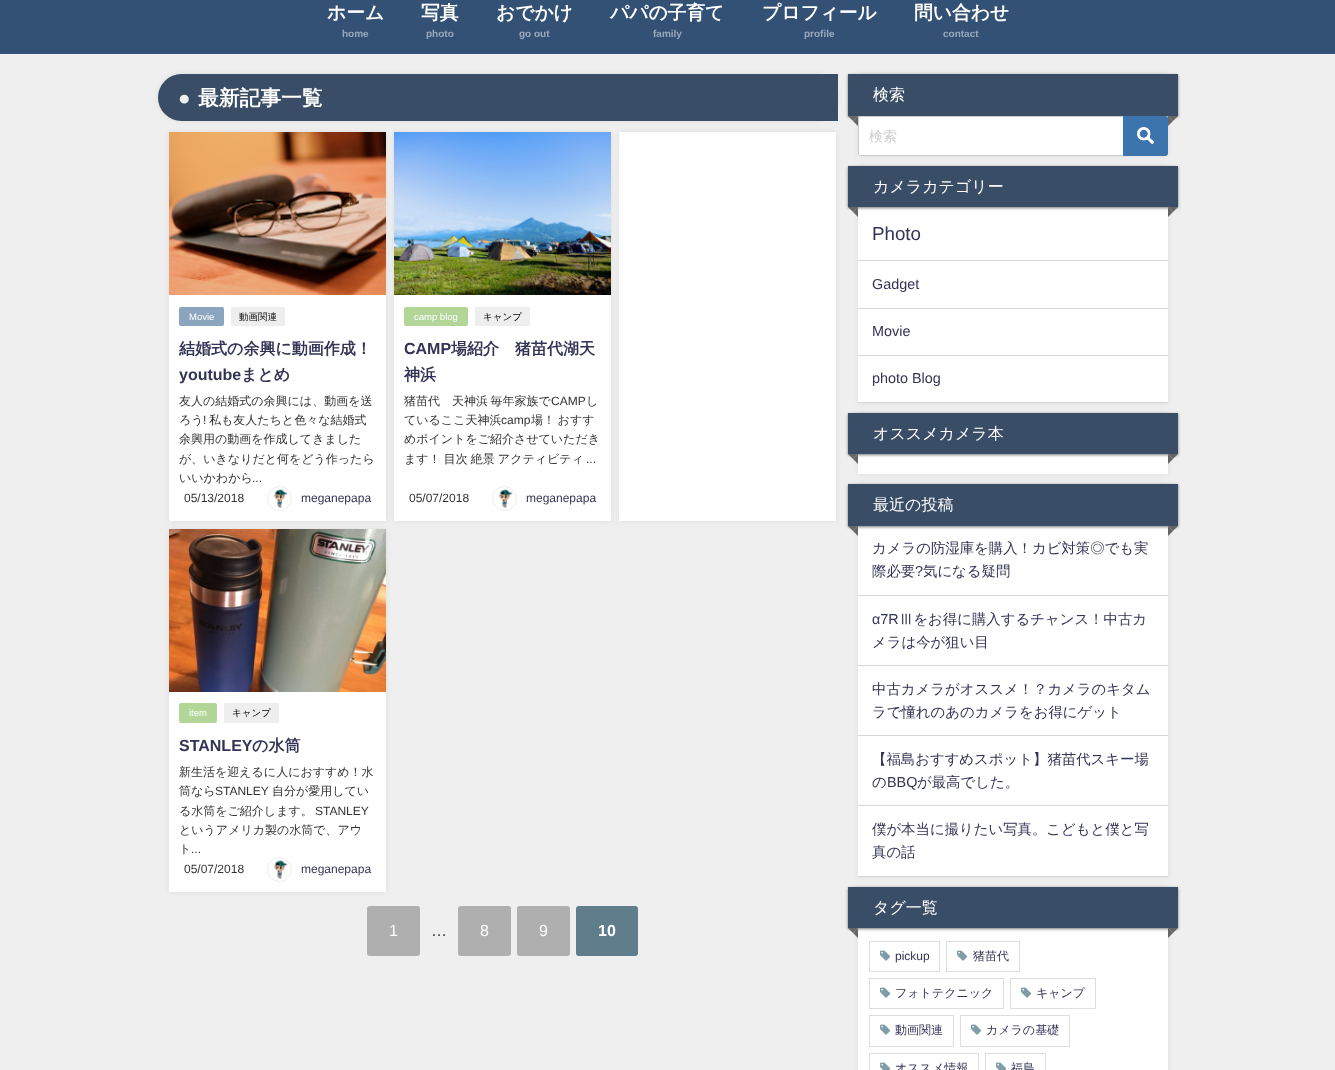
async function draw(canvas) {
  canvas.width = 1335;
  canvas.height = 1070;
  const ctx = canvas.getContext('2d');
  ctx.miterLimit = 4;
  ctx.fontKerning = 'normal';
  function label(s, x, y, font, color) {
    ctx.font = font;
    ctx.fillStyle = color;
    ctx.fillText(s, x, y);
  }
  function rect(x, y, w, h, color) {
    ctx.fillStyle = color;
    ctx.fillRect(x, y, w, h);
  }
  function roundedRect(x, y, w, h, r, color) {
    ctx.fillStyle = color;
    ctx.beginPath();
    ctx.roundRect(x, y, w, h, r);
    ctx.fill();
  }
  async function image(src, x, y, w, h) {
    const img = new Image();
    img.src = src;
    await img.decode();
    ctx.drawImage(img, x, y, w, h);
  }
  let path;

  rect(0, 0, 1335, 1070, '#efefef');
  rect(0, 0, 1335, 54, '#335175');
  label('ホーム', 327, 19, 'bold 18.75px WenQuanYi Zen Hei', '#fff');
  label('home', 342, 37, 'bold 10px Liberation Sans', '#99a8ba');
  label('写真', 421, 19, 'bold 18.75px WenQuanYi Zen Hei', '#fff');
  label('photo', 426, 37, 'bold 10px Liberation Sans', '#99a8ba');
  label('おでかけ', 496, 19, 'bold 18.75px WenQuanYi Zen Hei', '#fff');
  label('go out', 519, 37, 'bold 10px Liberation Sans', '#99a8ba');
  label('パパの子育て', 610, 19, 'bold 18.75px WenQuanYi Zen Hei', '#fff');
  label('family', 653, 37, 'bold 10px Liberation Sans', '#99a8ba');
  label('プロフィール', 762, 19, 'bold 18.75px WenQuanYi Zen Hei', '#fff');
  label('profile', 804, 37, 'bold 10px Liberation Sans', '#99a8ba');
  label('問い合わせ', 914, 19, 'bold 18.75px WenQuanYi Zen Hei', '#fff');
  label('contact', 943, 37, 'bold 10px Liberation Sans', '#99a8ba');
  ctx.fillStyle = '#96969633';
  ctx.filter = 'blur(2.5px)';
  ctx.beginPath();
  ctx.roundRect(158, 74, 680, 47, 23.5);
  ctx.fill();
  ctx.filter = 'none';
  ctx.fillStyle = '#394d66';
  ctx.beginPath();
  ctx.roundRect(158, 74, 680, 47, [23.5, 0, 0, 23.5]);
  ctx.fill();
  label('●', 178, 105, 'bold 20.75px Liberation Sans', '#eee');
  label('最新記事一覧', 198, 105, 'bold 20.75px WenQuanYi Zen Hei', '#fff');
  ctx.fillStyle = '#96969633';
  ctx.filter = 'blur(2.5px)';
  ctx.beginPath();
  ctx.rect(169, 132, 217, 389);
  ctx.fill();
  ctx.filter = 'none';
  rect(169, 295, 217, 226, '#fff');
  await image('assets/img1.png', 169, 132, 217, 163);
  roundedRect(179, 307, 45, 19, 2, '#8ba5bf');
  label('Movie', 189, 320, '9.5px Liberation Sans', '#fff');
  roundedRect(231, 307, 54, 19, 2, '#eee');
  label('動画関連', 239, 320, '500 9.5px WenQuanYi Zen Hei', '#000');
  label('結婚式の余興に動画作成！', 179, 354, 'bold 16px WenQuanYi Zen Hei', '#335');
  label('youtube', 179, 380, 'bold 16px Liberation Sans', '#335');
  label('まとめ', 241, 380, 'bold 16px WenQuanYi Zen Hei', '#335');
  label('友人の結婚式の余興には、動画を送', 179, 405, '500 12px WenQuanYi Zen Hei', '#333');
  label('ろう', 179, 424, '500 12px WenQuanYi Zen Hei', '#333');
  label('!', 203, 424, '12px Liberation Sans', '#333');
  label('私も友人たちと色々な結婚式', 209, 424, '500 12px WenQuanYi Zen Hei', '#333');
  label('余興用の動画を作成してきました', 179, 443, '500 12px WenQuanYi Zen Hei', '#333');
  label('が、いきなりだと何をどう作ったら', 179, 463, '500 12px WenQuanYi Zen Hei', '#333');
  label('いいかわから', 179, 482, '500 12px WenQuanYi Zen Hei', '#333');
  label('...', 252, 482, '12px Liberation Sans', '#333');
  label('05/13/2018', 184, 502, '12px Liberation Sans', '#333');
  ctx.beginPath();
  ctx.arc(279.5, 498.5, 12, 0, 2 * Math.PI);
  ctx.strokeStyle = '#eee';
  ctx.stroke();
  await image('assets/img2.png', 273, 489, 15, 20);
  label('meganepapa', 301, 502, '12px Liberation Sans', '#335');
  ctx.fillStyle = '#96969633';
  ctx.filter = 'blur(2.5px)';
  ctx.beginPath();
  ctx.rect(394, 132, 217, 389);
  ctx.fill();
  ctx.filter = 'none';
  rect(394, 295, 217, 226, '#fff');
  await image('assets/img3.png', 394, 132, 217, 163);
  roundedRect(404, 307, 64, 19, 2, '#b1d698');
  label('camp blog', 414, 320, '9.5px Liberation Sans', '#fff');
  roundedRect(475, 307, 55, 19, 2, '#eee');
  label('キャンプ', 483, 320, '500 9.5px WenQuanYi Zen Hei', '#000');
  label('CAMP', 404, 354, 'bold 16px Liberation Sans', '#335');
  label('場紹介　猪苗代湖天', 451, 354, 'bold 16px WenQuanYi Zen Hei', '#335');
  label('神浜', 404, 380, 'bold 16px WenQuanYi Zen Hei', '#335');
  ctx.wordSpacing = '-1px';
  label('猪苗代　天神浜 毎年家族で', 404, 405, '500 12px WenQuanYi Zen Hei', '#333');
  ctx.wordSpacing = '0px';
  label('CAMP', 551, 405, '12px Liberation Sans', '#333');
  label('し', 586, 405, '500 12px WenQuanYi Zen Hei', '#333');
  label('ているここ天神浜', 404, 424, '500 12px WenQuanYi Zen Hei', '#333');
  label('camp', 501, 424, '12px Liberation Sans', '#333');
  ctx.wordSpacing = '-1px';
  label('場！ おすす', 531, 424, '500 12px WenQuanYi Zen Hei', '#333');
  ctx.wordSpacing = '0px';
  label('めポイントをご紹介させていただき', 404, 443, '500 12px WenQuanYi Zen Hei', '#333');
  ctx.wordSpacing = '-0.5px';
  label('ます！ 目次 絶景 アクティビティ', 404, 463, '500 12px WenQuanYi Zen Hei', '#333');
  ctx.wordSpacing = '0px';
  label('...', 586, 463, '12px Liberation Sans', '#333');
  label('05/07/2018', 409, 502, '12px Liberation Sans', '#333');
  ctx.beginPath();
  ctx.arc(504.5, 498.5, 12, 0, 2 * Math.PI);
  ctx.stroke();
  await image('assets/img4.png', 498, 489, 15, 20);
  label('meganepapa', 526, 502, '12px Liberation Sans', '#335');
  ctx.fillStyle = '#96969633';
  ctx.filter = 'blur(2.5px)';
  ctx.beginPath();
  ctx.rect(619, 132, 217, 389);
  ctx.fill();
  ctx.filter = 'none';
  rect(619, 132, 217, 389, '#fff');
  ctx.fillStyle = '#96969633';
  ctx.filter = 'blur(2.5px)';
  ctx.beginPath();
  ctx.rect(169, 529, 217, 363);
  ctx.fill();
  ctx.filter = 'none';
  rect(169, 692, 217, 200, '#fff');
  await image('assets/img5.png', 169, 529, 217, 163);
  roundedRect(179, 703, 38, 20, 2, '#b1d698');
  label('item', 189, 716, '9.5px Liberation Sans', '#fff');
  roundedRect(224, 703, 55, 20, 2, '#eee');
  label('キャンプ', 232, 716, '500 9.5px WenQuanYi Zen Hei', '#000');
  label('STANLEY', 179, 751, 'bold 16px Liberation Sans', '#335');
  label('の水筒', 252, 751, 'bold 16px WenQuanYi Zen Hei', '#335');
  label('新生活を迎えるに人におすすめ！水', 179, 776, '500 12px WenQuanYi Zen Hei', '#333');
  label('筒なら', 179, 795, '500 12px WenQuanYi Zen Hei', '#333');
  label('STANLEY', 215, 795, '12px Liberation Sans', '#333');
  label('自分が愛用してい', 272, 795, '500 12px WenQuanYi Zen Hei', '#333');
  label('る水筒をご紹介します。', 179, 815, '500 12px WenQuanYi Zen Hei', '#333');
  label('STANLEY', 315, 815, '12px Liberation Sans', '#333');
  label('というアメリカ製の水筒で、アウ', 179, 834, '500 12px WenQuanYi Zen Hei', '#333');
  label('ト', 179, 853, '500 12px WenQuanYi Zen Hei', '#333');
  label('...', 191, 853, '12px Liberation Sans', '#333');
  label('05/07/2018', 184, 873, '12px Liberation Sans', '#333');
  ctx.beginPath();
  ctx.arc(279.5, 869.5, 12, 0, 2 * Math.PI);
  ctx.stroke();
  await image('assets/img2.png', 273, 860, 15, 20);
  label('meganepapa', 301, 873, '12px Liberation Sans', '#335');
  roundedRect(367, 906, 53, 50, 3, '#afafaf');
  label('1', 389, 936, '16px Liberation Sans', '#fff');
  label('…', 431, 936, '16px Liberation Sans', '#333');
  roundedRect(458, 906, 53, 50, 3, '#afafaf');
  label('8', 480, 936, '16px Liberation Sans', '#fff');
  roundedRect(517, 906, 53, 50, 3, '#afafaf');
  label('9', 539, 936, '16px Liberation Sans', '#fff');
  roundedRect(576, 906, 62, 50, 3, '#607d8b');
  label('10', 598, 936, 'bold 16px Liberation Sans', '#fff');
  ctx.fillStyle = '#96969633';
  ctx.filter = 'blur(2.5px)';
  ctx.beginPath();
  ctx.rect(858, 74, 310, 82);
  ctx.fill();
  ctx.filter = 'none';
  rect(858, 116, 310, 40, '#fff');
  ctx.fillStyle = '#777';
  ctx.filter = 'blur(1.5px)';
  ctx.beginPath();
  ctx.rect(848, 75, 330, 42);
  ctx.fill();
  ctx.filter = 'none';
  rect(848, 74, 330, 42, '#394d66');
  label('検索', 873, 100, '500 16px WenQuanYi Zen Hei', '#fff');
  ctx.fillStyle = '#666';
  path = new Path2D('M848 116H858L853 121Z');
  ctx.fill(path);
  path = new Path2D('M858 116V126L853 121Z');
  ctx.fill(path);
  path = new Path2D('M1168 116H1178L1173 121Z');
  ctx.fill(path);
  path = new Path2D('M1168 126V116L1173 121Z');
  ctx.fill(path);
  ctx.fillStyle = '#fff';
  ctx.beginPath();
  ctx.roundRect(858.5, 116.5, 309, 39, 1.5);
  ctx.fill();
  ctx.strokeStyle = '#ccc';
  ctx.stroke();
  label('検索', 869, 141, '500 14px WenQuanYi Zen Hei', '#ccc');
  ctx.fillStyle = '#3c74ad';
  ctx.beginPath();
  ctx.roundRect(1123, 116, 45, 40, [0, 3, 3, 0]);
  ctx.fill();
  await image('assets/img6.png', 1137, 127, 17, 17);
  ctx.fillStyle = '#96969633';
  ctx.filter = 'blur(2.5px)';
  ctx.beginPath();
  ctx.rect(858, 166, 310, 237);
  ctx.fill();
  ctx.filter = 'none';
  rect(858, 207, 310, 195, '#fff');
  ctx.fillStyle = '#777';
  ctx.filter = 'blur(1.5px)';
  ctx.beginPath();
  ctx.rect(848, 167, 330, 41);
  ctx.fill();
  ctx.filter = 'none';
  rect(848, 166, 330, 41, '#394d66');
  label('カメラカテゴリー', 873, 192, '500 16px WenQuanYi Zen Hei', '#fff');
  ctx.fillStyle = '#666';
  path = new Path2D('M848 207H858L853 212Z');
  ctx.fill(path);
  path = new Path2D('M858 207V217L853 212Z');
  ctx.fill(path);
  path = new Path2D('M1168 207H1178L1173 212Z');
  ctx.fill(path);
  path = new Path2D('M1168 217V207L1173 212Z');
  ctx.fill(path);
  rect(858, 260, 310, 1, '#d6d6d6');
  label('Photo', 872, 240, '18.75px Liberation Sans', '#335');
  rect(858, 308, 310, 1, '#d6d6d6');
  label('Gadget', 872, 289, '14.4px Liberation Sans', '#335');
  rect(858, 355, 310, 1, '#d6d6d6');
  label('Movie', 872, 336, '14.4px Liberation Sans', '#335');
  rect(858, 402, 310, 1, '#d6d6d6');
  label('photo Blog', 872, 383, '14.4px Liberation Sans', '#335');
  ctx.fillStyle = '#96969633';
  ctx.filter = 'blur(2.5px)';
  ctx.beginPath();
  ctx.rect(858, 413, 310, 61);
  ctx.fill();
  ctx.filter = 'none';
  rect(858, 454, 310, 20, '#fff');
  ctx.fillStyle = '#777';
  ctx.filter = 'blur(1.5px)';
  ctx.beginPath();
  ctx.rect(848, 414, 330, 41);
  ctx.fill();
  ctx.filter = 'none';
  rect(848, 413, 330, 41, '#394d66');
  label('オススメカメラ本', 873, 439, '500 16px WenQuanYi Zen Hei', '#fff');
  ctx.fillStyle = '#666';
  path = new Path2D('M848 454H858L853 459Z');
  ctx.fill(path);
  path = new Path2D('M858 454V464L853 459Z');
  ctx.fill(path);
  path = new Path2D('M1168 454H1178L1173 459Z');
  ctx.fill(path);
  path = new Path2D('M1168 464V454L1173 459Z');
  ctx.fill(path);
  ctx.fillStyle = '#96969633';
  ctx.filter = 'blur(2.5px)';
  ctx.beginPath();
  ctx.rect(858, 484, 310, 393);
  ctx.fill();
  ctx.filter = 'none';
  rect(858, 526, 310, 350, '#fff');
  ctx.fillStyle = '#777';
  ctx.filter = 'blur(1.5px)';
  ctx.beginPath();
  ctx.rect(848, 485, 330, 42);
  ctx.fill();
  ctx.filter = 'none';
  rect(848, 484, 330, 42, '#394d66');
  label('最近の投稿', 873, 510, '500 16px WenQuanYi Zen Hei', '#fff');
  ctx.fillStyle = '#666';
  path = new Path2D('M848 526H858L853 531Z');
  ctx.fill(path);
  path = new Path2D('M858 526V536L853 531Z');
  ctx.fill(path);
  path = new Path2D('M1168 526H1178L1173 531Z');
  ctx.fill(path);
  path = new Path2D('M1168 536V526L1173 531Z');
  ctx.fill(path);
  rect(858, 595, 310, 1, '#d6d6d6');
  label('カメラの防湿庫を購入！カビ対策◎でも実', 872, 553, '500 14.4px WenQuanYi Zen Hei', '#335');
  label('際必要', 872, 576, '500 14.4px WenQuanYi Zen Hei', '#335');
  label('?', 915, 576, '14.4px Liberation Sans', '#335');
  label('気になる疑問', 923, 576, '500 14.4px WenQuanYi Zen Hei', '#335');
  rect(858, 665, 310, 1, '#d6d6d6');
  label('α7R', 872, 624, '14.4px Liberation Sans', '#335');
  label('Ⅲをお得に購入するチャンス！中古カ', 899, 624, '500 14.4px WenQuanYi Zen Hei', '#335');
  label('メラは今が狙い目', 872, 647, '500 14.4px WenQuanYi Zen Hei', '#335');
  rect(858, 735, 310, 1, '#d6d6d6');
  label('中古カメラがオススメ！？カメラのキタム', 872, 694, '500 14.4px WenQuanYi Zen Hei', '#335');
  label('ラで憧れのあのカメラをお得にゲット', 872, 717, '500 14.4px WenQuanYi Zen Hei', '#335');
  rect(858, 805, 310, 1, '#d6d6d6');
  label('【福島おすすめスポット】猪苗代スキー場', 872, 764, '500 14.4px WenQuanYi Zen Hei', '#335');
  label('の', 872, 787, '500 14.4px WenQuanYi Zen Hei', '#335');
  label('BBQ', 887, 787, '14.4px Liberation Sans', '#335');
  label('が最高でした。', 917, 787, '500 14.4px WenQuanYi Zen Hei', '#335');
  rect(858, 876, 310, 1, '#d6d6d6');
  label('僕が本当に撮りたい写真。こどもと僕と写', 872, 834, '500 14.4px WenQuanYi Zen Hei', '#335');
  label('真の話', 872, 857, '500 14.4px WenQuanYi Zen Hei', '#335');
  ctx.fillStyle = '#96969633';
  ctx.filter = 'blur(2.5px)';
  ctx.beginPath();
  ctx.rect(858, 887, 310, 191);
  ctx.fill();
  ctx.filter = 'none';
  rect(858, 928, 310, 142, '#fff');
  ctx.fillStyle = '#777';
  ctx.filter = 'blur(1.5px)';
  ctx.beginPath();
  ctx.rect(848, 888, 330, 41);
  ctx.fill();
  ctx.filter = 'none';
  rect(848, 887, 330, 41, '#394d66');
  label('タグ一覧', 873, 913, '500 16px WenQuanYi Zen Hei', '#fff');
  ctx.fillStyle = '#666';
  path = new Path2D('M848 928H858L853 933Z');
  ctx.fill(path);
  path = new Path2D('M858 928V938L853 933Z');
  ctx.fill(path);
  path = new Path2D('M1168 928H1178L1173 933Z');
  ctx.fill(path);
  path = new Path2D('M1168 938V928L1173 933Z');
  ctx.fill(path);
  ctx.strokeStyle = '#ddd';
  ctx.strokeRect(869.5, 941.5, 70, 30);
  await image('assets/img7.png', 880, 950, 11, 11);
  label('pickup', 895, 960, '12px Liberation Sans', '#335');
  ctx.strokeRect(946.5, 941.5, 73, 30);
  await image('assets/img7.png', 957, 950, 11, 11);
  label('猪苗代', 973, 960, '500 12px WenQuanYi Zen Hei', '#335');
  ctx.strokeRect(869.5, 978.5, 134, 30);
  await image('assets/img7.png', 880, 987, 11, 11);
  label('フォトテクニック', 895, 997, '500 12px WenQuanYi Zen Hei', '#335');
  ctx.strokeRect(1010.5, 978.5, 85, 30);
  await image('assets/img7.png', 1021, 987, 11, 11);
  label('キャンプ', 1036, 997, '500 12px WenQuanYi Zen Hei', '#335');
  ctx.strokeRect(869.5, 1015.5, 84, 31);
  await image('assets/img7.png', 880, 1024, 11, 11);
  label('動画関連', 895, 1034, '500 12px WenQuanYi Zen Hei', '#335');
  ctx.strokeRect(960.5, 1015.5, 109, 31);
  await image('assets/img7.png', 971, 1024, 11, 11);
  label('カメラの基礎', 986, 1034, '500 12px WenQuanYi Zen Hei', '#335');
  ctx.strokeRect(869.5, 1053.5, 109, 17);
  await image('assets/img8.png', 880, 1062, 11, 8);
  label('オススメ情報', 895, 1072, '500 12px WenQuanYi Zen Hei', '#335');
  ctx.strokeRect(985.5, 1053.5, 60, 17);
  await image('assets/img8.png', 996, 1062, 11, 8);
  label('福島', 1011, 1072, '500 12px WenQuanYi Zen Hei', '#335');
}

draw(document.querySelector('canvas'));
